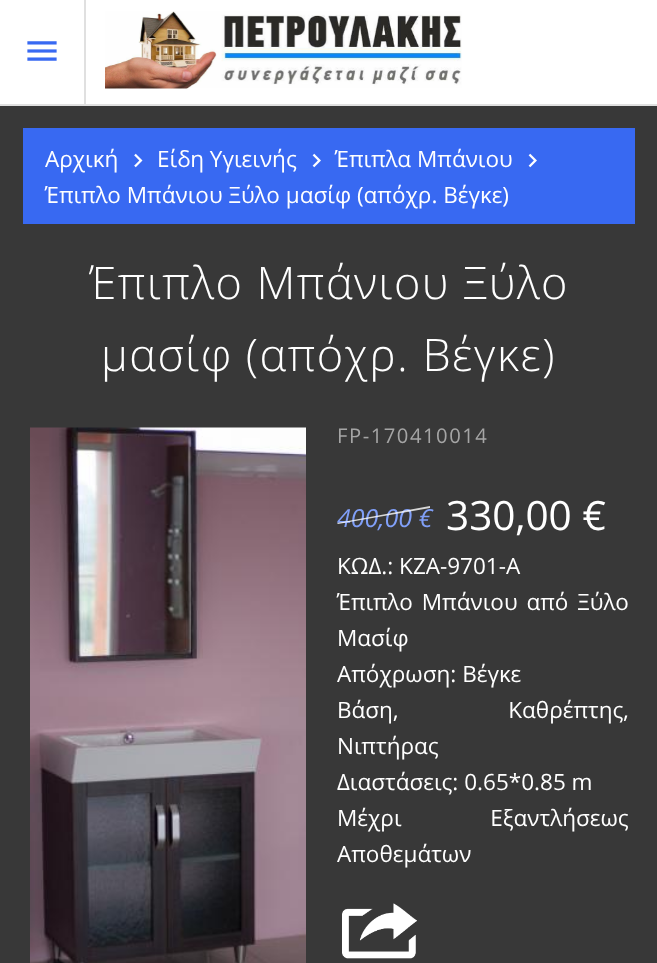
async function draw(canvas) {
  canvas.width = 657;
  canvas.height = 963;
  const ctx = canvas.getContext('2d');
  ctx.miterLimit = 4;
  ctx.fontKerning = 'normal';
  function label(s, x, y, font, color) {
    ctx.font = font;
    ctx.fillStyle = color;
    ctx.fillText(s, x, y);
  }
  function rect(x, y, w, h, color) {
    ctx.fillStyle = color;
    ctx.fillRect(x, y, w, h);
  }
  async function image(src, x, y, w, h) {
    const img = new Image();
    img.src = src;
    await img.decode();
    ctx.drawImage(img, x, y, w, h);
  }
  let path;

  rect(0, 0, 657, 963, '#383838');
  rect(0, 0, 657, 104, '#fff');
  rect(0, 104, 657, 2, '#e0e0e0');
  rect(84, 0, 2, 104, '#e0e0e0');
  await image('assets/img1.png', 27, 41, 30, 20);
  await image('assets/img2.png', 105, 11, 357, 78);
  rect(23, 128, 612, 96, '#3869f2');
  label('Αρχική', 45, 167, '22.5px Open Sans', '#fff');
  await image('assets/img3.png', 134, 153, 9, 15);
  label('Είδη Υγιεινής', 157, 167, '22.5px Open Sans', '#fff');
  await image('assets/img4.png', 312, 153, 9, 15);
  label('Έπιπλα Μπάνιου', 335, 167, '22.5px Open Sans', '#fff');
  await image('assets/img4.png', 528, 153, 9, 15);
  label('Έπιπλο Μπάνιου Ξύλο μασίφ (απόχρ. Βέγκε)', 45, 203, '22.5px Open Sans', '#fff');
  ctx.letterSpacing = '1.5px';
  label('Έπιπλο Μπάνιου Ξύλο', 89, 299, '300 45px Open Sans', '#fff');
  label('μασίφ (απόχρ. Βέγκε)', 101, 371, '300 45px Open Sans', '#fff');
  await image('assets/img5.png', 30, 427, 276, 536);
  label('FP-170410014', 337, 443, '20.25px Open Sans', '#a5a5a5');
  ctx.letterSpacing = '0px';
  label('400,00 €', 337, 527, 'italic 25px Open Sans', '#809ff7');
  ctx.fillStyle = '#ffffffcc';
  path = new Path2D('M337 523L430 506V508L338 524Z');
  ctx.fill(path);
  label('330,00 €', 446, 530, '40.5px Open Sans', '#fff');
  label('ΚΩΔ.: ΚΖΑ-9701-A', 337, 574, '22.5px Open Sans', '#fff');
  ctx.wordSpacing = '3px';
  label('Έπιπλο Μπάνιου από Ξύλο', 337, 610, '22.5px Open Sans', '#fff');
  ctx.wordSpacing = '0px';
  label('Μασίφ', 337, 646, '22.5px Open Sans', '#fff');
  label('Απόχρωση: Βέγκε', 337, 682, '22.5px Open Sans', '#fff');
  ctx.wordSpacing = '104px';
  label('Βάση, Καθρέπτης,', 337, 718, '22.5px Open Sans', '#fff');
  ctx.wordSpacing = '0px';
  label('Νιπτήρας', 337, 754, '22.5px Open Sans', '#fff');
  label('Διαστάσεις: 0.65*0.85 m', 337, 790, '22.5px Open Sans', '#fff');
  ctx.wordSpacing = '83px';
  label('Μέχρι Εξαντλήσεως', 337, 826, '22.5px Open Sans', '#fff');
  ctx.wordSpacing = '0px';
  label('Αποθεμάτων', 337, 862, '22.5px Open Sans', '#fff');
  await image('assets/img6.png', 342, 903, 75, 56);
}

draw(document.querySelector('canvas'));
